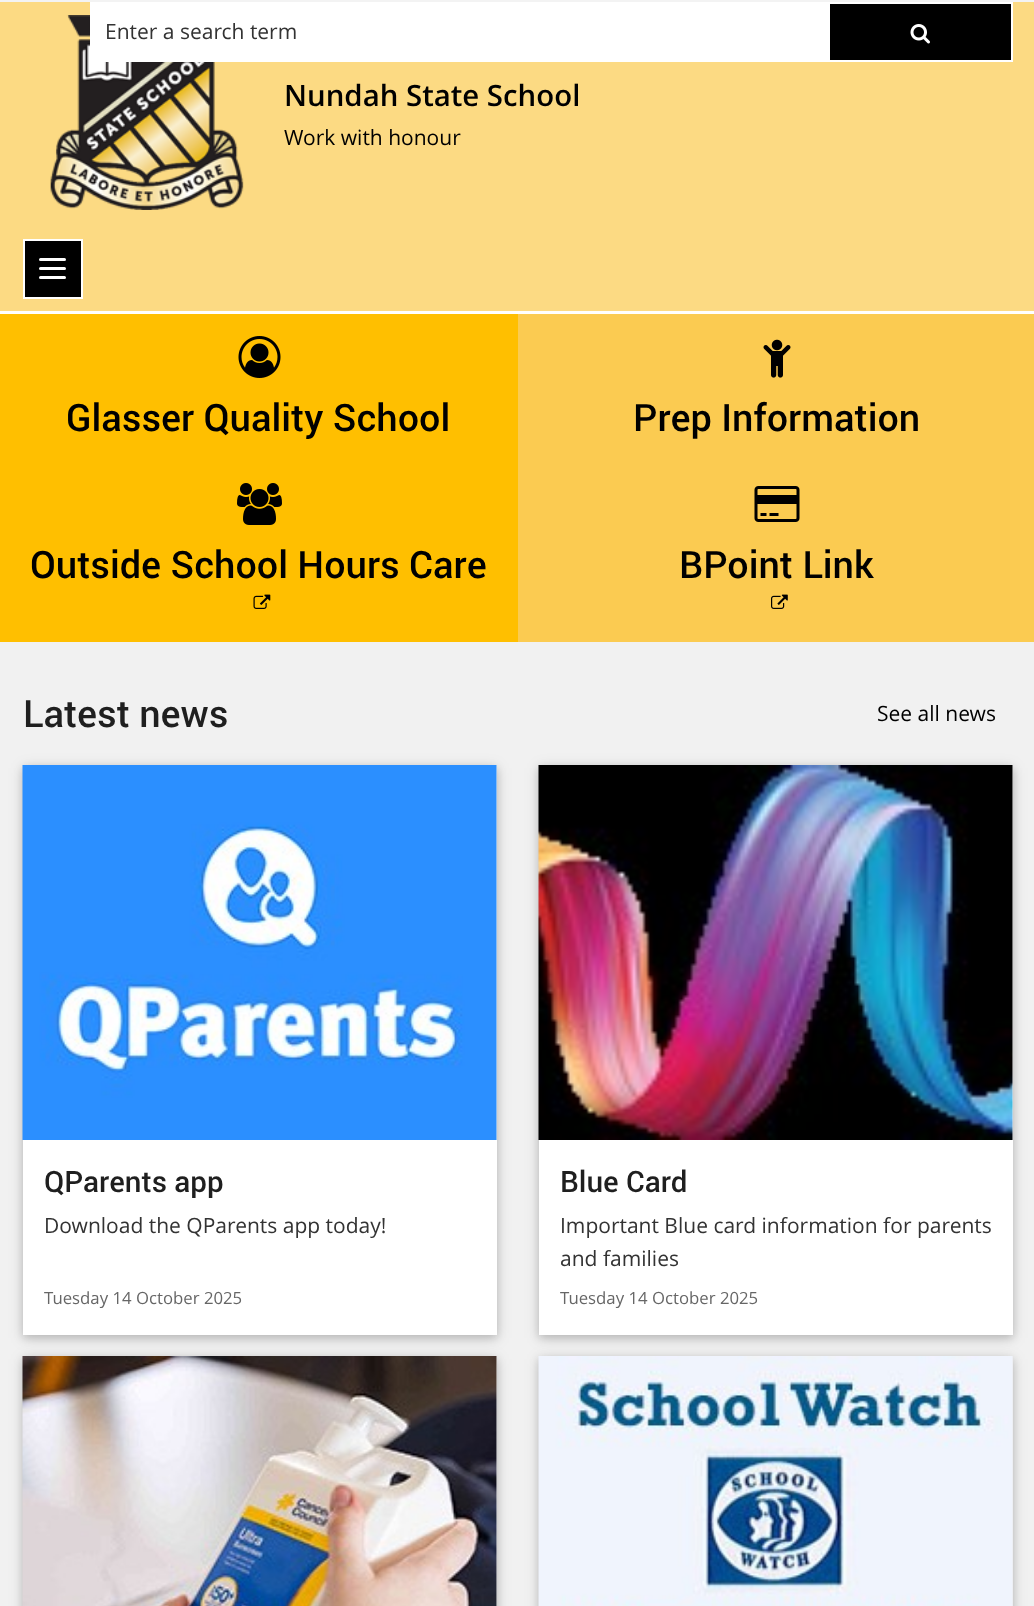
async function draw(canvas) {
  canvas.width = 1034;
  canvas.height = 1606;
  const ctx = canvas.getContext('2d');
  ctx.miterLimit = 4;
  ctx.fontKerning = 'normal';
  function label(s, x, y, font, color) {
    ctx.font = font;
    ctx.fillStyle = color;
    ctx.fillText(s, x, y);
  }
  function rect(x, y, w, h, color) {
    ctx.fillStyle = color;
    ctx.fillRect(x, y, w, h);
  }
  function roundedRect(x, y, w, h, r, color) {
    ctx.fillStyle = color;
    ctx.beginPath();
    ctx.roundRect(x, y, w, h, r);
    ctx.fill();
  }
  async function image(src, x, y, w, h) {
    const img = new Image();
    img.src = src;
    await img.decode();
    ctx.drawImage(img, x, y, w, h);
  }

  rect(0, 0, 1034, 1606, '#fff');
  rect(0, 0, 1034, 2, '#f3f3f3');
  rect(0, 2, 1034, 309, '#fcda83');
  await image('assets/img2.png', 50, 15, 194, 195);
  rect(90, 2, 738, 60, '#fff');
  label('Enter a search term', 105, 39, '21px Open Sans', '#333');
  ctx.fillStyle = '#000';
  ctx.beginPath();
  ctx.rect(829, 3, 183, 58);
  ctx.fill();
  ctx.strokeStyle = '#fff';
  ctx.lineWidth = 2;
  ctx.stroke();
  await image('assets/img1.png', 910, 24, 20, 20);
  label('Nundah State School', 284, 106, '600 29.4px Open Sans', '#000');
  label('Work with honour', 284, 145, '21px Open Sans', '#000');
  ctx.beginPath();
  ctx.rect(24, 240, 58, 58);
  ctx.fill();
  ctx.stroke();
  roundedRect(39, 258, 27, 3, 1.5, '#fff');
  roundedRect(39, 267, 27, 3, 1.5, '#fff');
  roundedRect(39, 276, 27, 3, 1.5, '#fff');
  rect(0, 314, 518, 328, '#ffbf00');
  rect(518, 314, 516, 328, '#fbcb51');
  await image('assets/img3.png', 238, 336, 43, 42);
  label('Glasser Quality School', 66, 431, '500 37.75px Roboto', '#000');
  await image('assets/img4.png', 763, 339, 28, 39);
  label('Prep Information', 633, 431, '500 37.75px Roboto', '#000');
  await image('assets/img5.png', 237, 483, 45, 42);
  label('Outside School Hours Care', 30, 578, '500 37.75px Roboto', '#000');
  await image('assets/img6.png', 253, 594, 18, 15);
  await image('assets/img7.png', 754, 486, 46, 36);
  label('BPoint Link', 679, 578, '500 37.75px Roboto', '#000');
  await image('assets/img8.png', 771, 594, 17, 15);
  rect(0, 642, 1034, 964, '#f1f1f1');
  label('Latest news', 23, 727, '500 37.75px Roboto', '#1f1f1f');
  label('See all news', 877, 721, '21px Open Sans', '#000');
  ctx.fillStyle = '#0000001f';
  ctx.filter = 'blur(7.5px)';
  ctx.beginPath();
  ctx.rect(23, 768, 474, 570);
  ctx.fill();
  ctx.filter = 'none';
  ctx.fillStyle = '#00000029';
  ctx.filter = 'blur(4px)';
  ctx.beginPath();
  ctx.rect(23, 768, 474, 570);
  ctx.fill();
  ctx.filter = 'none';
  rect(23, 1140, 474, 195, '#fff');
  rect(496, 765, 1, 375, '#eaeaea');
  await image('assets/img9.png', 22, 765, 475, 375);
  label('QParents app', 44, 1192, '500 29.4px Roboto', '#1f1f1f');
  label('Download the QParents app today!', 44, 1233, '21px Open Sans', '#333');
  label('Tuesday 14 October 2025', 44, 1304, '16.75px Open Sans', '#666');
  ctx.fillStyle = '#0000001f';
  ctx.filter = 'blur(7.5px)';
  ctx.beginPath();
  ctx.rect(539, 768, 474, 570);
  ctx.fill();
  ctx.filter = 'none';
  ctx.fillStyle = '#00000029';
  ctx.filter = 'blur(4px)';
  ctx.beginPath();
  ctx.rect(539, 768, 474, 570);
  ctx.fill();
  ctx.filter = 'none';
  rect(539, 1140, 474, 195, '#fff');
  rect(1012, 765, 1, 375, '#eaeaea');
  await image('assets/img10.png', 538, 765, 475, 375);
  label('Blue Card', 560, 1192, '500 29.4px Roboto', '#1f1f1f');
  label('Important Blue card information for parents', 560, 1233, '21px Open Sans', '#333');
  label('and families', 560, 1266, '21px Open Sans', '#333');
  label('Tuesday 14 October 2025', 560, 1304, '16.75px Open Sans', '#666');
  ctx.fillStyle = '#0000001f';
  ctx.filter = 'blur(7.5px)';
  ctx.beginPath();
  ctx.rect(23, 1359, 474, 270);
  ctx.fill();
  ctx.filter = 'none';
  ctx.fillStyle = '#00000029';
  ctx.filter = 'blur(4px)';
  ctx.beginPath();
  ctx.rect(23, 1359, 474, 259);
  ctx.fill();
  ctx.filter = 'none';
  rect(496, 1356, 1, 250, '#eaeaea');
  await image('assets/img11.png', 22, 1356, 475, 250);
  ctx.fillStyle = '#0000001f';
  ctx.filter = 'blur(7.5px)';
  ctx.beginPath();
  ctx.rect(539, 1359, 474, 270);
  ctx.fill();
  ctx.filter = 'none';
  ctx.fillStyle = '#00000029';
  ctx.filter = 'blur(4px)';
  ctx.beginPath();
  ctx.rect(539, 1359, 474, 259);
  ctx.fill();
  ctx.filter = 'none';
  rect(1012, 1356, 1, 250, '#eaeaea');
  await image('assets/img12.png', 538, 1356, 475, 250);
}

draw(document.querySelector('canvas'));
